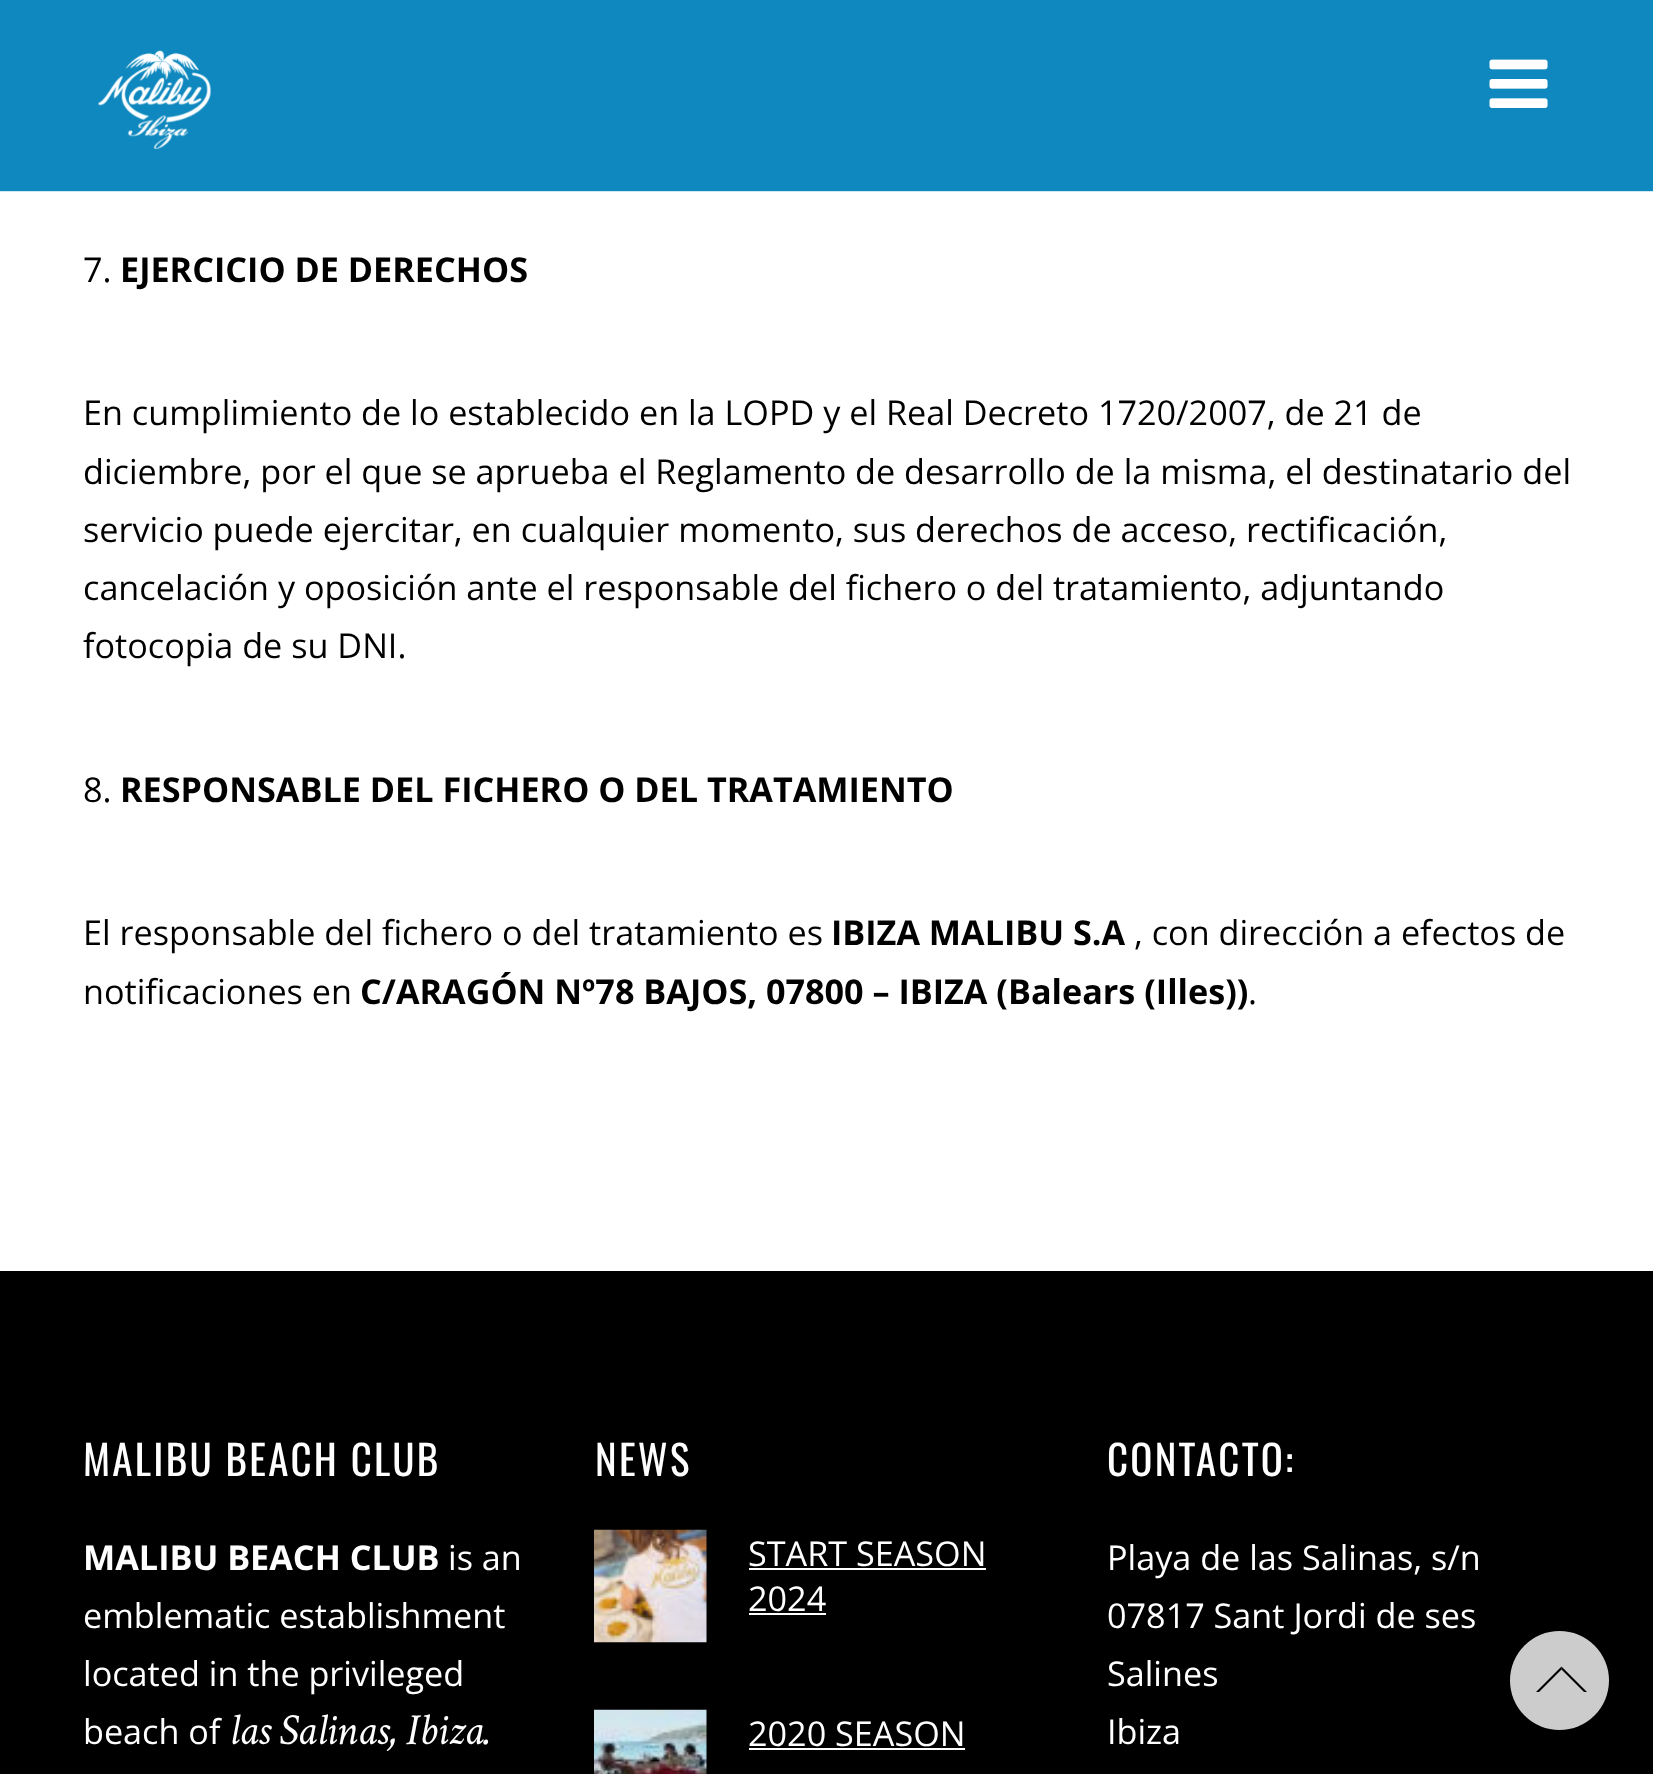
async function draw(canvas) {
  canvas.width = 1653;
  canvas.height = 1774;
  const ctx = canvas.getContext('2d');
  ctx.miterLimit = 4;
  ctx.fontKerning = 'normal';
  function label(s, x, y, font, color) {
    ctx.font = font;
    ctx.fillStyle = color;
    ctx.fillText(s, x, y);
  }
  function rect(x, y, w, h, color) {
    ctx.fillStyle = color;
    ctx.fillRect(x, y, w, h);
  }
  async function image(src, x, y, w, h) {
    const img = new Image();
    img.src = src;
    await img.decode();
    ctx.drawImage(img, x, y, w, h);
  }
  let path;

  rect(0, 0, 1653, 1774, '#fff');
  rect(0, 0, 1653, 191, '#0e88be');
  rect(0, 191, 1653, 1, '#cee7f2');
  await image('assets/img1.png', 98, 50, 113, 100);
  await image('assets/img2.png', 1489, 59, 59, 49);
  label('7.', 83, 282, '34.2px Open Sans', '#000');
  label('EJERCICIO DE DERECHOS', 120, 282, 'bold 34.2px Open Sans', '#000');
  label('En cumplimiento de lo establecido en la LOPD y el Real Decreto 1720/2007, de 21 de', 83, 425, '34.2px Open Sans', '#000');
  label('diciembre, por el que se aprueba el Reglamento de desarrollo de la misma, el destinatario del', 83, 484, '34.2px Open Sans', '#000');
  label('servicio puede ejercitar, en cualquier momento, sus derechos de acceso, rectificación,', 83, 542, '34.2px Open Sans', '#000');
  label('cancelación y oposición ante el responsable del fichero o del tratamiento, adjuntando', 83, 600, '34.2px Open Sans', '#000');
  label('fotocopia de su DNI.', 83, 658, '34.2px Open Sans', '#000');
  label('8.', 83, 802, '34.2px Open Sans', '#000');
  label('RESPONSABLE DEL FICHERO O DEL TRATAMIENTO', 120, 802, 'bold 34.2px Open Sans', '#000');
  label('El responsable del fichero o del tratamiento es', 83, 945, '34.2px Open Sans', '#000');
  label('IBIZA MALIBU S.A', 831, 945, 'bold 34.2px Open Sans', '#000');
  label(', con dirección a efectos de', 1134, 945, '34.2px Open Sans', '#000');
  label('notificaciones en', 83, 1004, '34.2px Open Sans', '#000');
  label('C/ARAGÓN Nº78 BAJOS, 07800 – IBIZA (Balears (Illes))', 360, 1004, 'bold 34.2px Open Sans', '#000');
  label('.', 1248, 1004, '34.2px Open Sans', '#000');
  rect(0, 1271, 1653, 503, '#000');
  ctx.letterSpacing = '2.25px';
  label('MALIBU BEACH CLUB', 83, 1476, '41px Oswald', '#fff');
  ctx.letterSpacing = '0px';
  label('MALIBU BEACH CLUB', 83, 1570, 'bold 34.2px Open Sans', '#fff');
  label('is an', 448, 1570, '34.2px Open Sans', '#fff');
  label('emblematic establishment', 83, 1628, '34.2px Open Sans', '#fff');
  label('located in the privileged', 83, 1686, '34.2px Open Sans', '#fff');
  label('beach of', 83, 1744, '34.2px Open Sans', '#fff');
  ctx.letterSpacing = '-0.7px';
  label('las Salinas, Ibiza.', 229, 1744, 'italic 44.5px Crimson Text', '#fff');
  ctx.letterSpacing = '2.25px';
  label('NEWS', 595, 1476, '41px Oswald', '#fff');
  await image('assets/img3.png', 594, 1529, 113, 114);
  ctx.letterSpacing = '0px';
  label('START SEASON', 748, 1566, '34.2px Open Sans', '#fff');
  rect(749, 1568, 237, 2, '#fff');
  label('2024', 748, 1611, '34.2px Open Sans', '#fff');
  rect(749, 1613, 77, 2, '#fff');
  await image('assets/img4.png', 594, 1709, 113, 65);
  label('2020 SEASON', 748, 1746, '34.2px Open Sans', '#fff');
  rect(749, 1748, 216, 2, '#fff');
  ctx.letterSpacing = '2.25px';
  label('CONTACTO:', 1107, 1476, '41px Oswald', '#fff');
  ctx.letterSpacing = '0px';
  label('Playa de las Salinas, s/n', 1107, 1570, '34.2px Open Sans', '#fff');
  label('07817 Sant Jordi de ses', 1107, 1628, '34.2px Open Sans', '#fff');
  label('Salines', 1107, 1686, '34.2px Open Sans', '#fff');
  label('Ibiza', 1107, 1744, '34.2px Open Sans', '#fff');
  ctx.fillStyle = '#ccc';
  ctx.beginPath();
  ctx.arc(1559.5, 1680.5, 49.5, 0, 2 * Math.PI);
  ctx.fill();
  ctx.fillStyle = '#000';
  path = new Path2D('M1561.5 1666.5L1587 1692H1584L1561.5 1669.5Z');
  ctx.fill(path);
  path = new Path2D('M1536 1692L1561.5 1666.5V1669.5L1539 1692Z');
  ctx.fill(path);
}

draw(document.querySelector('canvas'));
